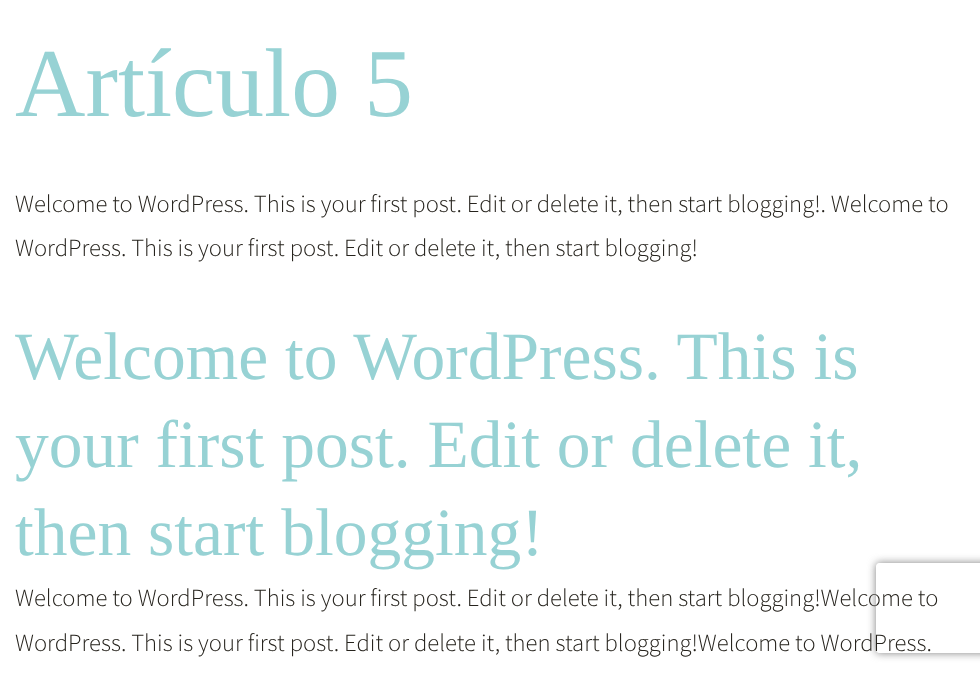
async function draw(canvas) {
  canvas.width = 980;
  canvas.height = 673;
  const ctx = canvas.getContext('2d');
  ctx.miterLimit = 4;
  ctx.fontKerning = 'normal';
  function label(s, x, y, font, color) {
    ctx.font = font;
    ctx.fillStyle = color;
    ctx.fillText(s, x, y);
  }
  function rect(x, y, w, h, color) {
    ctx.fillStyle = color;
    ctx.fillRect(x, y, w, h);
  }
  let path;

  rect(0, 0, 980, 673, '#fff');
  label('Artículo 5', 15, 116, '97.5px Liberation Serif', '#97d2d4');
  label('Welcome to WordPress. This is your first post. Edit or delete it, then start blogging!. Welcome to', 15, 212, '300 24.6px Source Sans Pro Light', '#26231d');
  label('WordPress. This is your first post. Edit or delete it, then start blogging!', 15, 256, '300 24.6px Source Sans Pro Light', '#26231d');
  label('Welcome to WordPress. This is', 15, 379, '67.5px Liberation Serif', '#97d2d4');
  label('your first post. Edit or delete it,', 15, 467, '67.5px Liberation Serif', '#97d2d4');
  label('then start blogging!', 15, 555, '67.5px Liberation Serif', '#97d2d4');
  label('Welcome to WordPress. This is your first post. Edit or delete it, then start blogging!Welcome to', 15, 606, '300 24.6px Source Sans Pro Light', '#26231d');
  label('WordPress. This is your first post. Edit or delete it, then start blogging!Welcome to WordPress.', 15, 651, '300 24.6px Source Sans Pro Light', '#26231d');
  ctx.save();
  path = new Path2D('M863 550H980V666H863ZM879 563H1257C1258.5 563 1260 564.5 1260 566V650C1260 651.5 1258.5 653 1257 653H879C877.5 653 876 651.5 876 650V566C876 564.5 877.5 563 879 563Z');
  ctx.clip(path, 'evenodd');
  ctx.fillStyle = '#808080';
  ctx.filter = 'blur(4px)';
  ctx.beginPath();
  ctx.roundRect(876, 563, 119, 90, 3);
  ctx.fill();
  ctx.filter = 'none';
  ctx.restore();
}

draw(document.querySelector('canvas'));
